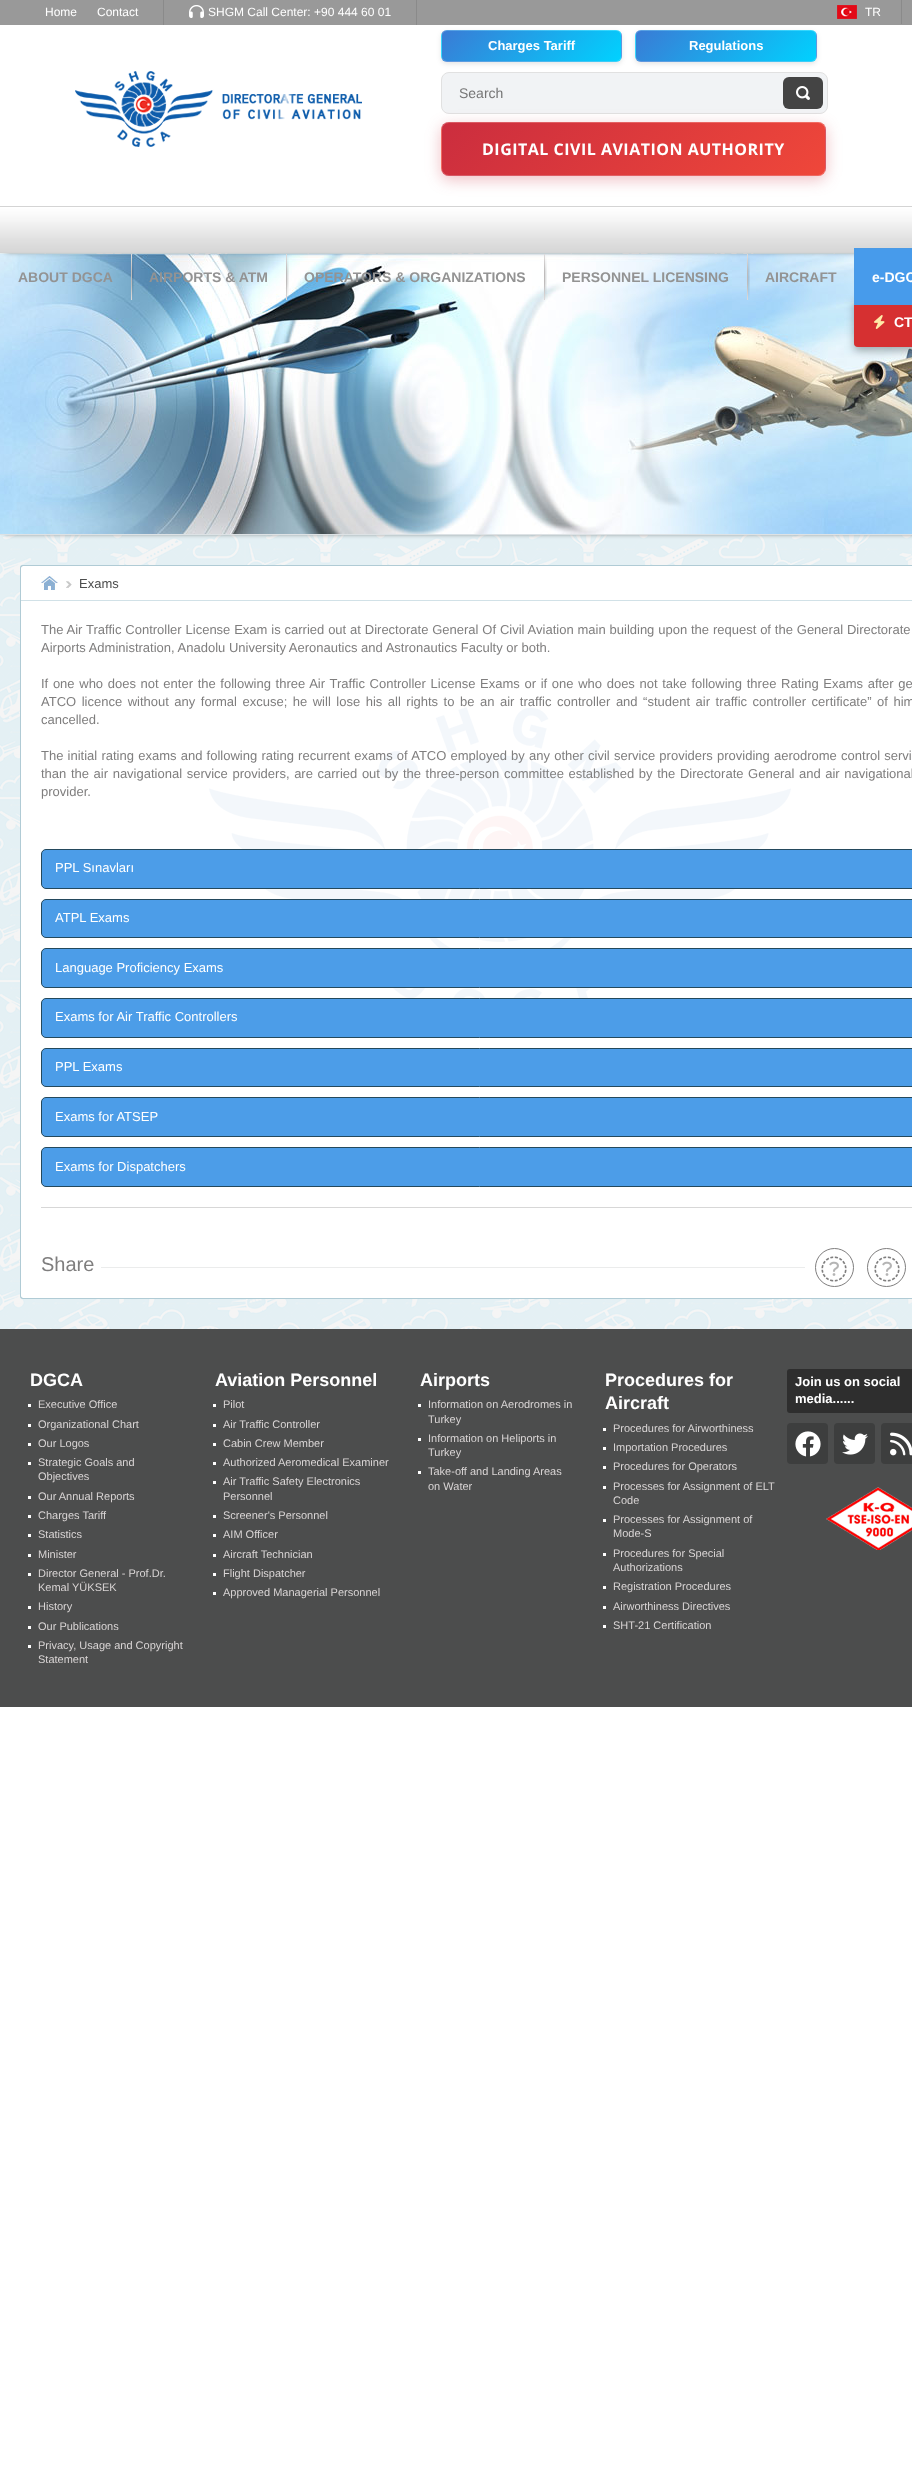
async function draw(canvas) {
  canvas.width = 912;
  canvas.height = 2487;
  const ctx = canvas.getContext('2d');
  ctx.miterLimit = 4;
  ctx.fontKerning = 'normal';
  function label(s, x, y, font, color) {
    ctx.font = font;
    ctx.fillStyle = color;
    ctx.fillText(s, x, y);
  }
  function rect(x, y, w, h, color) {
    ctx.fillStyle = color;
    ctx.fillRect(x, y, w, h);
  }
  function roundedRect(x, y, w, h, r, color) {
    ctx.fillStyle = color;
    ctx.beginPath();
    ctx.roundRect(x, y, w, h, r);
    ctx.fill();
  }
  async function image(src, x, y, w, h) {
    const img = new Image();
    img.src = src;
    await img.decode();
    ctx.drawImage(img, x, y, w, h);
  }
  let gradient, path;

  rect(0, 0, 912, 2487, '#fff');
  rect(0, 0, 912, 25, '#999');
  rect(163, 0, 1, 25, '#8a8a8a');
  label('Home', 45, 16, '12px Liberation Sans', '#fff');
  label('Contact', 97, 16, '12px Liberation Sans', '#fff');
  rect(416, 0, 1, 25, '#8a8a8a');
  await image('assets/img1.png', 189, 5, 15, 13);
  label('SHGM Call Center: +90 444 60 01', 208, 16, '12px Liberation Sans', '#fff');
  await image('assets/img2.png', 837, 5, 20, 14);
  rect(901, 0, 1, 24, '#8a8a8a');
  label('TR', 865, 16, '12px Liberation Sans', '#fff');
  await image('assets/img3.png', 75, 71, 287, 76);
  ctx.fillStyle = '#f1f3f5';
  ctx.beginPath();
  ctx.roundRect(441.5, 72.5, 386, 41, 7.5);
  ctx.fill();
  ctx.strokeStyle = '#e1e1e1';
  ctx.stroke();
  ctx.fillStyle = '#0000001a';
  ctx.filter = 'blur(2.5px)';
  ctx.beginPath();
  ctx.roundRect(441, 32, 181, 32, 6);
  ctx.fill();
  ctx.filter = 'none';
  ctx.save();
  ctx.beginPath();
  ctx.roundRect(441, 30, 181, 32, 6);
  ctx.clip();
  gradient = ctx.createLinearGradient(479, -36, 584, 68);
  gradient.addColorStop(0, '#3a7bd5');
  gradient.addColorStop(1, '#00d2ff');
  ctx.fillStyle = gradient;
  ctx.fillRect(442, 30, 179, 1);
  gradient = ctx.createLinearGradient(300, -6.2, 405, 98);
  gradient.addColorStop(0, '#3a7bd5');
  gradient.addColorStop(1, '#00d2ff');
  ctx.fillStyle = gradient;
  ctx.fillRect(441, 31, 1, 30);
  gradient = ctx.createLinearGradient(479, -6.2, 584, 98);
  gradient.addColorStop(0, '#3a7bd5');
  gradient.addColorStop(1, '#00d2ff');
  ctx.fillStyle = gradient;
  ctx.fillRect(442, 31, 179, 30);
  gradient = ctx.createLinearGradient(658, -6.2, 763, 98);
  gradient.addColorStop(0, '#3a7bd5');
  gradient.addColorStop(1, '#00d2ff');
  ctx.fillStyle = gradient;
  ctx.fillRect(621, 31, 1, 30);
  gradient = ctx.createLinearGradient(479, 24, 584, 128);
  gradient.addColorStop(0, '#3a7bd5');
  gradient.addColorStop(1, '#00d2ff');
  ctx.fillStyle = gradient;
  ctx.fillRect(442, 61, 179, 1);
  ctx.restore();
  ctx.beginPath();
  ctx.roundRect(441.5, 30.5, 180, 31, 5.5);
  ctx.strokeStyle = '#ffffff33';
  ctx.stroke();
  label('Charges Tariff', 488, 50, 'bold 13px Liberation Sans', '#fff');
  ctx.fillStyle = '#0000001a';
  ctx.filter = 'blur(2.5px)';
  ctx.beginPath();
  ctx.roundRect(635, 32, 182, 32, 6);
  ctx.fill();
  ctx.filter = 'none';
  ctx.save();
  ctx.beginPath();
  ctx.roundRect(635, 30, 182, 32, 6);
  ctx.clip();
  gradient = ctx.createLinearGradient(674, -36, 779, 69);
  gradient.addColorStop(0, '#3a7bd5');
  gradient.addColorStop(1, '#00d2ff');
  ctx.fillStyle = gradient;
  ctx.fillRect(636, 30, 180, 1);
  gradient = ctx.createLinearGradient(494, -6.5, 599, 99);
  gradient.addColorStop(0, '#3a7bd5');
  gradient.addColorStop(1, '#00d2ff');
  ctx.fillStyle = gradient;
  ctx.fillRect(635, 31, 1, 30);
  gradient = ctx.createLinearGradient(674, -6.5, 779, 99);
  gradient.addColorStop(0, '#3a7bd5');
  gradient.addColorStop(1, '#00d2ff');
  ctx.fillStyle = gradient;
  ctx.fillRect(636, 31, 180, 30);
  gradient = ctx.createLinearGradient(854, -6.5, 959, 99);
  gradient.addColorStop(0, '#3a7bd5');
  gradient.addColorStop(1, '#00d2ff');
  ctx.fillStyle = gradient;
  ctx.fillRect(816, 31, 1, 30);
  gradient = ctx.createLinearGradient(674, 24, 779, 129);
  gradient.addColorStop(0, '#3a7bd5');
  gradient.addColorStop(1, '#00d2ff');
  ctx.fillStyle = gradient;
  ctx.fillRect(636, 61, 180, 1);
  ctx.restore();
  ctx.beginPath();
  ctx.roundRect(635.5, 30.5, 181, 31, 5.5);
  ctx.stroke();
  label('Regulations', 689, 50, 'bold 13px Liberation Sans', '#fff');
  label('Search', 459, 98, '14px Liberation Sans', '#757575');
  roundedRect(783, 77, 40, 32, 6, '#444');
  await image('assets/img4.png', 796, 86, 14, 14);
  ctx.fillStyle = '#cb2d3e4d';
  ctx.filter = 'blur(7.5px)';
  ctx.beginPath();
  ctx.roundRect(441, 126, 385, 54, 8);
  ctx.fill();
  ctx.filter = 'none';
  ctx.save();
  ctx.beginPath();
  ctx.roundRect(441, 122, 385, 54, 8);
  ctx.clip();
  gradient = ctx.createLinearGradient(525, -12, 742, 206);
  gradient.addColorStop(0, '#cb2d3e');
  gradient.addColorStop(1, '#ef473a');
  ctx.fillStyle = gradient;
  ctx.fillRect(442, 122, 383, 1);
  gradient = ctx.createLinearGradient(142, 40, 359, 258);
  gradient.addColorStop(0, '#cb2d3e');
  gradient.addColorStop(1, '#ef473a');
  ctx.fillStyle = gradient;
  ctx.fillRect(441, 123, 1, 52);
  gradient = ctx.createLinearGradient(525, 40, 742, 258);
  gradient.addColorStop(0, '#cb2d3e');
  gradient.addColorStop(1, '#ef473a');
  ctx.fillStyle = gradient;
  ctx.fillRect(442, 123, 383, 52);
  gradient = ctx.createLinearGradient(908, 40, 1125, 258);
  gradient.addColorStop(0, '#cb2d3e');
  gradient.addColorStop(1, '#ef473a');
  ctx.fillStyle = gradient;
  ctx.fillRect(825, 123, 1, 52);
  gradient = ctx.createLinearGradient(525, 92, 742, 310);
  gradient.addColorStop(0, '#cb2d3e');
  gradient.addColorStop(1, '#ef473a');
  ctx.fillStyle = gradient;
  ctx.fillRect(442, 175, 383, 1);
  ctx.restore();
  ctx.beginPath();
  ctx.roundRect(441.5, 122.5, 384, 53, 7.5);
  ctx.stroke();
  ctx.letterSpacing = '0.5px';
  label('DIGITAL CIVIL AVIATION AUTHORITY', 482, 155, 'bold 16px Open Sans', '#fff');
  await image('assets/img12.png', 0, 253, 912, 1076);
  ctx.fillStyle = '#000';
  ctx.filter = 'blur(3px)';
  ctx.beginPath();
  ctx.rect(6, 263, 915, 269);
  ctx.fill();
  ctx.filter = 'none';
  await image('assets/img13.png', 0, 254, 912, 280);
  ctx.filter = 'blur(3px)';
  ctx.beginPath();
  ctx.rect(6, 215, 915, 35);
  ctx.fill();
  ctx.filter = 'none';
  await image('assets/img5.png', 0, 207, 912, 46);
  rect(0, 206, 912, 1, '#d4d4d4');
  ctx.letterSpacing = '0px';
  label('ABOUT DGCA', 18, 282, 'bold 14px Liberation Sans', '#939393');
  await image('assets/img6.png', 131, 254, 3, 46);
  label('AIRPORTS & ATM', 149, 282, 'bold 14px Liberation Sans', '#939393');
  await image('assets/img7.png', 286, 254, 3, 46);
  label('OPERATORS & ORGANIZATIONS', 304, 282, 'bold 14px Liberation Sans', '#939393');
  await image('assets/img8.png', 544, 254, 3, 46);
  label('PERSONNEL LICENSING', 562, 282, 'bold 14px Liberation Sans', '#939393');
  await image('assets/img9.png', 747, 254, 3, 46);
  label('AIRCRAFT', 765, 282, 'bold 14px Liberation Sans', '#939393');
  await image('assets/img10.png', 854, 343, 1, 2);
  ctx.fillStyle = '#0000004d';
  ctx.filter = 'blur(4px)';
  ctx.beginPath();
  ctx.roundRect(854, 301, 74, 50, 4);
  ctx.fill();
  ctx.filter = 'none';
  roundedRect(854, 297, 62, 50, 4, '#d63031');
  rect(854, 248, 58, 57, '#479beb');
  ctx.beginPath();
  ctx.roundRect(854.5, 248.5, 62, 56, 3.5);
  ctx.strokeStyle = '#4b9ae5';
  ctx.stroke();
  label('e-DGC', 872, 282, 'bold 14px Liberation Sans', '#fff');
  await image('assets/img11.png', 874, 315, 11, 14);
  label('CT', 894, 327, 'bold 14px Liberation Sans', '#fff');
  rect(0, 534, 912, 1, '#dde2e5');
  ctx.beginPath();
  ctx.roundRect(20.5, 565.5, 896, 733, 3.5);
  ctx.strokeStyle = '#b0cbd5';
  ctx.stroke();
  ctx.fillStyle = '#fff';
  path = new Path2D('M23 566H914V1298H23C22 1298 21 1297 21 1296V568C21 567 22 566 23 566Z');
  ctx.fill(path);
  await image('assets/img14.png', 209, 707, 582, 291);
  ctx.fillStyle = '#b0cbd5';
  path = new Path2D('M23 565H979V1299H23C21 1299 20 1298 20 1296V568C20 566 21 565 23 565ZM23 566H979V1298H23C22 1298 21 1297 21 1296V568C21 567 22 566 23 566Z');
  ctx.fill(path, 'evenodd');
  rect(21, 600, 891, 1, '#d1e1e7');
  await image('assets/img15.png', 41, 576, 17, 14);
  await image('assets/img16.png', 66, 581, 6, 7);
  label('Exams', 79, 588, '13px Liberation Sans', '#4c4d4d');
  ctx.wordSpacing = '0.25px';
  label('The Air Traffic Controller License Exam is carried out at Directorate General Of Civil Aviation main building upon the request of the General Directorate', 41, 634, '13px Liberation Sans', '#7f7e7e');
  ctx.wordSpacing = '0px';
  label('Airports Administration, Anadolu University Aeronautics and Astronautics Faculty or both.', 41, 652, '13px Liberation Sans', '#7f7e7e');
  ctx.wordSpacing = '1.05px';
  label('If one who does not enter the following three Air Traffic Controller License Exams or if one who does not take following three Rating Exams after ge', 41, 688, '13px Liberation Sans', '#7f7e7e');
  ctx.wordSpacing = '1.9px';
  label('ATCO licence without any formal excuse; he will lose his all rights to be an air traffic controller and “student air traffic controller certificate” of him', 41, 706, '13px Liberation Sans', '#7f7e7e');
  ctx.wordSpacing = '0px';
  label('cancelled.', 41, 724, '13px Liberation Sans', '#7f7e7e');
  ctx.wordSpacing = '0.6px';
  label('The initial rating exams and following rating recurrent exams of ATCO employed by any other civil service providers providing aerodrome control servi', 41, 760, '13px Liberation Sans', '#7f7e7e');
  ctx.wordSpacing = '1px';
  label('than the air navigational service providers, are carried out by the three-person committee established by the Directorate General and air navigational', 41, 778, '13px Liberation Sans', '#7f7e7e');
  ctx.wordSpacing = '0px';
  label('provider.', 41, 796, '13px Liberation Sans', '#7f7e7e');
  ctx.fillStyle = '#4c9de8';
  ctx.beginPath();
  ctx.roundRect(41.5, 849.5, 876, 39, 4.5);
  ctx.fill();
  ctx.strokeStyle = '#24495d';
  ctx.stroke();
  label('PPL Sınavları', 55, 872, '13px Liberation Sans', '#fff');
  ctx.fillStyle = '#4c9de8';
  ctx.beginPath();
  ctx.roundRect(41.5, 899.5, 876, 38, 4.5);
  ctx.fill();
  ctx.stroke();
  label('ATPL Exams', 55, 922, '13px Liberation Sans', '#fff');
  ctx.fillStyle = '#4c9de8';
  ctx.beginPath();
  ctx.roundRect(41.5, 948.5, 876, 39, 4.5);
  ctx.fill();
  ctx.stroke();
  label('Language Proficiency Exams', 55, 972, '13px Liberation Sans', '#fff');
  ctx.fillStyle = '#4c9de8';
  ctx.beginPath();
  ctx.roundRect(41.5, 998.5, 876, 39, 4.5);
  ctx.fill();
  ctx.stroke();
  label('Exams for Air Traffic Controllers', 55, 1021, '13px Liberation Sans', '#fff');
  ctx.fillStyle = '#4c9de8';
  ctx.beginPath();
  ctx.roundRect(41.5, 1048.5, 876, 38, 4.5);
  ctx.fill();
  ctx.stroke();
  label('PPL Exams', 55, 1071, '13px Liberation Sans', '#fff');
  ctx.fillStyle = '#4c9de8';
  ctx.beginPath();
  ctx.roundRect(41.5, 1097.5, 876, 39, 4.5);
  ctx.fill();
  ctx.stroke();
  label('Exams for ATSEP', 55, 1121, '13px Liberation Sans', '#fff');
  ctx.fillStyle = '#4c9de8';
  ctx.beginPath();
  ctx.roundRect(41.5, 1147.5, 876, 39, 4.5);
  ctx.fill();
  ctx.stroke();
  label('Exams for Dispatchers', 55, 1171, '13px Liberation Sans', '#fff');
  rect(41, 1207, 871, 1, '#d7d7d7');
  rect(101, 1267, 704, 1, '#ebecec');
  label('Share', 41, 1271, '20px Liberation Sans', '#7f7e7e');
  ctx.beginPath();
  ctx.arc(834.5, 1267.5, 19, 0, 2 * Math.PI);
  ctx.strokeStyle = '#7f7e7e';
  ctx.stroke();
  await image('assets/img17.png', 821, 1256, 26, 26);
  ctx.beginPath();
  ctx.arc(886.5, 1267.5, 19, 0, 2 * Math.PI);
  ctx.stroke();
  await image('assets/img18.png', 874, 1256, 26, 26);
  rect(0, 1329, 912, 378, '#4c4d4d');
  label('DGCA', 30, 1386, 'bold 18px Liberation Sans', '#fff');
  rect(28, 1404, 3, 3, '#fff');
  label('Executive Office', 38, 1408, '11px Liberation Sans', '#d9d5d5');
  rect(28, 1424, 3, 3, '#fff');
  label('Organizational Chart', 38, 1428, '11px Liberation Sans', '#d9d5d5');
  rect(28, 1443, 3, 3, '#fff');
  label('Our Logos', 38, 1447, '11px Liberation Sans', '#d9d5d5');
  rect(28, 1462, 3, 3, '#fff');
  label('Strategic Goals and', 38, 1466, '11px Liberation Sans', '#d9d5d5');
  label('Objectives', 38, 1480, '11px Liberation Sans', '#d9d5d5');
  rect(28, 1496, 3, 3, '#fff');
  label('Our Annual Reports', 38, 1500, '11px Liberation Sans', '#d9d5d5');
  rect(28, 1515, 3, 3, '#fff');
  label('Charges Tariff', 38, 1519, '11px Liberation Sans', '#d9d5d5');
  rect(28, 1534, 3, 3, '#fff');
  label('Statistics', 38, 1538, '11px Liberation Sans', '#d9d5d5');
  rect(28, 1554, 3, 3, '#fff');
  label('Minister', 38, 1558, '11px Liberation Sans', '#d9d5d5');
  rect(28, 1573, 3, 3, '#fff');
  label('Director General - Prof.Dr.', 38, 1577, '11px Liberation Sans', '#d9d5d5');
  label('Kemal YÜKSEK', 38, 1591, '11px Liberation Sans', '#d9d5d5');
  rect(28, 1606, 3, 3, '#fff');
  label('History', 38, 1610, '11px Liberation Sans', '#d9d5d5');
  rect(28, 1626, 3, 3, '#fff');
  label('Our Publications', 38, 1630, '11px Liberation Sans', '#d9d5d5');
  rect(28, 1645, 3, 3, '#fff');
  label('Privacy, Usage and Copyright', 38, 1649, '11px Liberation Sans', '#d9d5d5');
  label('Statement', 38, 1663, '11px Liberation Sans', '#d9d5d5');
  label('Aviation Personnel', 215, 1386, 'bold 18px Liberation Sans', '#fff');
  rect(213, 1404, 3, 3, '#fff');
  label('Pilot', 223, 1408, '11px Liberation Sans', '#d9d5d5');
  rect(213, 1424, 3, 3, '#fff');
  label('Air Traffic Controller', 223, 1428, '11px Liberation Sans', '#d9d5d5');
  rect(213, 1443, 3, 3, '#fff');
  label('Cabin Crew Member', 223, 1447, '11px Liberation Sans', '#d9d5d5');
  rect(213, 1462, 3, 3, '#fff');
  label('Authorized Aeromedical Examiner', 223, 1466, '11px Liberation Sans', '#d9d5d5');
  rect(213, 1481, 3, 3, '#fff');
  label('Air Traffic Safety Electronics', 223, 1485, '11px Liberation Sans', '#d9d5d5');
  label('Personnel', 223, 1500, '11px Liberation Sans', '#d9d5d5');
  rect(213, 1515, 3, 3, '#fff');
  label('Screener\'s Personnel', 223, 1519, '11px Liberation Sans', '#d9d5d5');
  rect(213, 1534, 3, 3, '#fff');
  label('AIM Officer', 223, 1538, '11px Liberation Sans', '#d9d5d5');
  rect(213, 1554, 3, 3, '#fff');
  label('Aircraft Technician', 223, 1558, '11px Liberation Sans', '#d9d5d5');
  rect(213, 1573, 3, 3, '#fff');
  label('Flight Dispatcher', 223, 1577, '11px Liberation Sans', '#d9d5d5');
  rect(213, 1592, 3, 3, '#fff');
  label('Approved Managerial Personnel', 223, 1596, '11px Liberation Sans', '#d9d5d5');
  label('Airports', 420, 1386, 'bold 18px Liberation Sans', '#fff');
  rect(418, 1404, 3, 3, '#fff');
  label('Information on Aerodromes in', 428, 1408, '11px Liberation Sans', '#d9d5d5');
  label('Turkey', 428, 1423, '11px Liberation Sans', '#d9d5d5');
  rect(418, 1438, 3, 3, '#fff');
  label('Information on Heliports in', 428, 1442, '11px Liberation Sans', '#d9d5d5');
  label('Turkey', 428, 1456, '11px Liberation Sans', '#d9d5d5');
  rect(418, 1471, 3, 3, '#fff');
  label('Take-off and Landing Areas', 428, 1475, '11px Liberation Sans', '#d9d5d5');
  label('on Water', 428, 1490, '11px Liberation Sans', '#d9d5d5');
  label('Procedures for', 605, 1386, 'bold 18px Liberation Sans', '#fff');
  label('Aircraft', 605, 1409, 'bold 18px Liberation Sans', '#fff');
  rect(603, 1428, 3, 3, '#fff');
  label('Procedures for Airworthiness', 613, 1432, '11px Liberation Sans', '#d9d5d5');
  rect(603, 1447, 3, 3, '#fff');
  label('Importation Procedures', 613, 1451, '11px Liberation Sans', '#d9d5d5');
  rect(603, 1466, 3, 3, '#fff');
  label('Procedures for Operators', 613, 1470, '11px Liberation Sans', '#d9d5d5');
  rect(603, 1486, 3, 3, '#fff');
  label('Processes for Assignment of ELT', 613, 1490, '11px Liberation Sans', '#d9d5d5');
  label('Code', 613, 1504, '11px Liberation Sans', '#d9d5d5');
  rect(603, 1519, 3, 3, '#fff');
  label('Processes for Assignment of', 613, 1523, '11px Liberation Sans', '#d9d5d5');
  label('Mode-S', 613, 1537, '11px Liberation Sans', '#d9d5d5');
  rect(603, 1553, 3, 3, '#fff');
  label('Procedures for Special', 613, 1557, '11px Liberation Sans', '#d9d5d5');
  label('Authorizations', 613, 1571, '11px Liberation Sans', '#d9d5d5');
  rect(603, 1586, 3, 3, '#fff');
  label('Registration Procedures', 613, 1590, '11px Liberation Sans', '#d9d5d5');
  rect(603, 1606, 3, 3, '#fff');
  label('Airworthiness Directives', 613, 1610, '11px Liberation Sans', '#d9d5d5');
  rect(603, 1625, 3, 3, '#fff');
  label('SHT-21 Certification', 613, 1629, '11px Liberation Sans', '#d9d5d5');
  roundedRect(787, 1369, 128, 44, 3, '#2e2e2e');
  label('Join us on social', 795, 1386, 'bold 13px Liberation Sans', '#fff');
  label('media......', 795, 1403, 'bold 13px Liberation Sans', '#fff');
  roundedRect(787, 1423, 41, 41, 4, '#3d3e3e');
  await image('assets/img19.png', 795, 1431, 26, 26);
  roundedRect(834, 1423, 41, 41, 4, '#3d3e3e');
  await image('assets/img20.png', 842, 1433, 26, 22);
  roundedRect(881, 1423, 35, 41, 4, '#3d3e3e');
  await image('assets/img21.png', 890, 1432, 22, 24);
  await image('assets/img22.png', 826, 1487, 86, 63);
}

draw(document.querySelector('canvas'));
